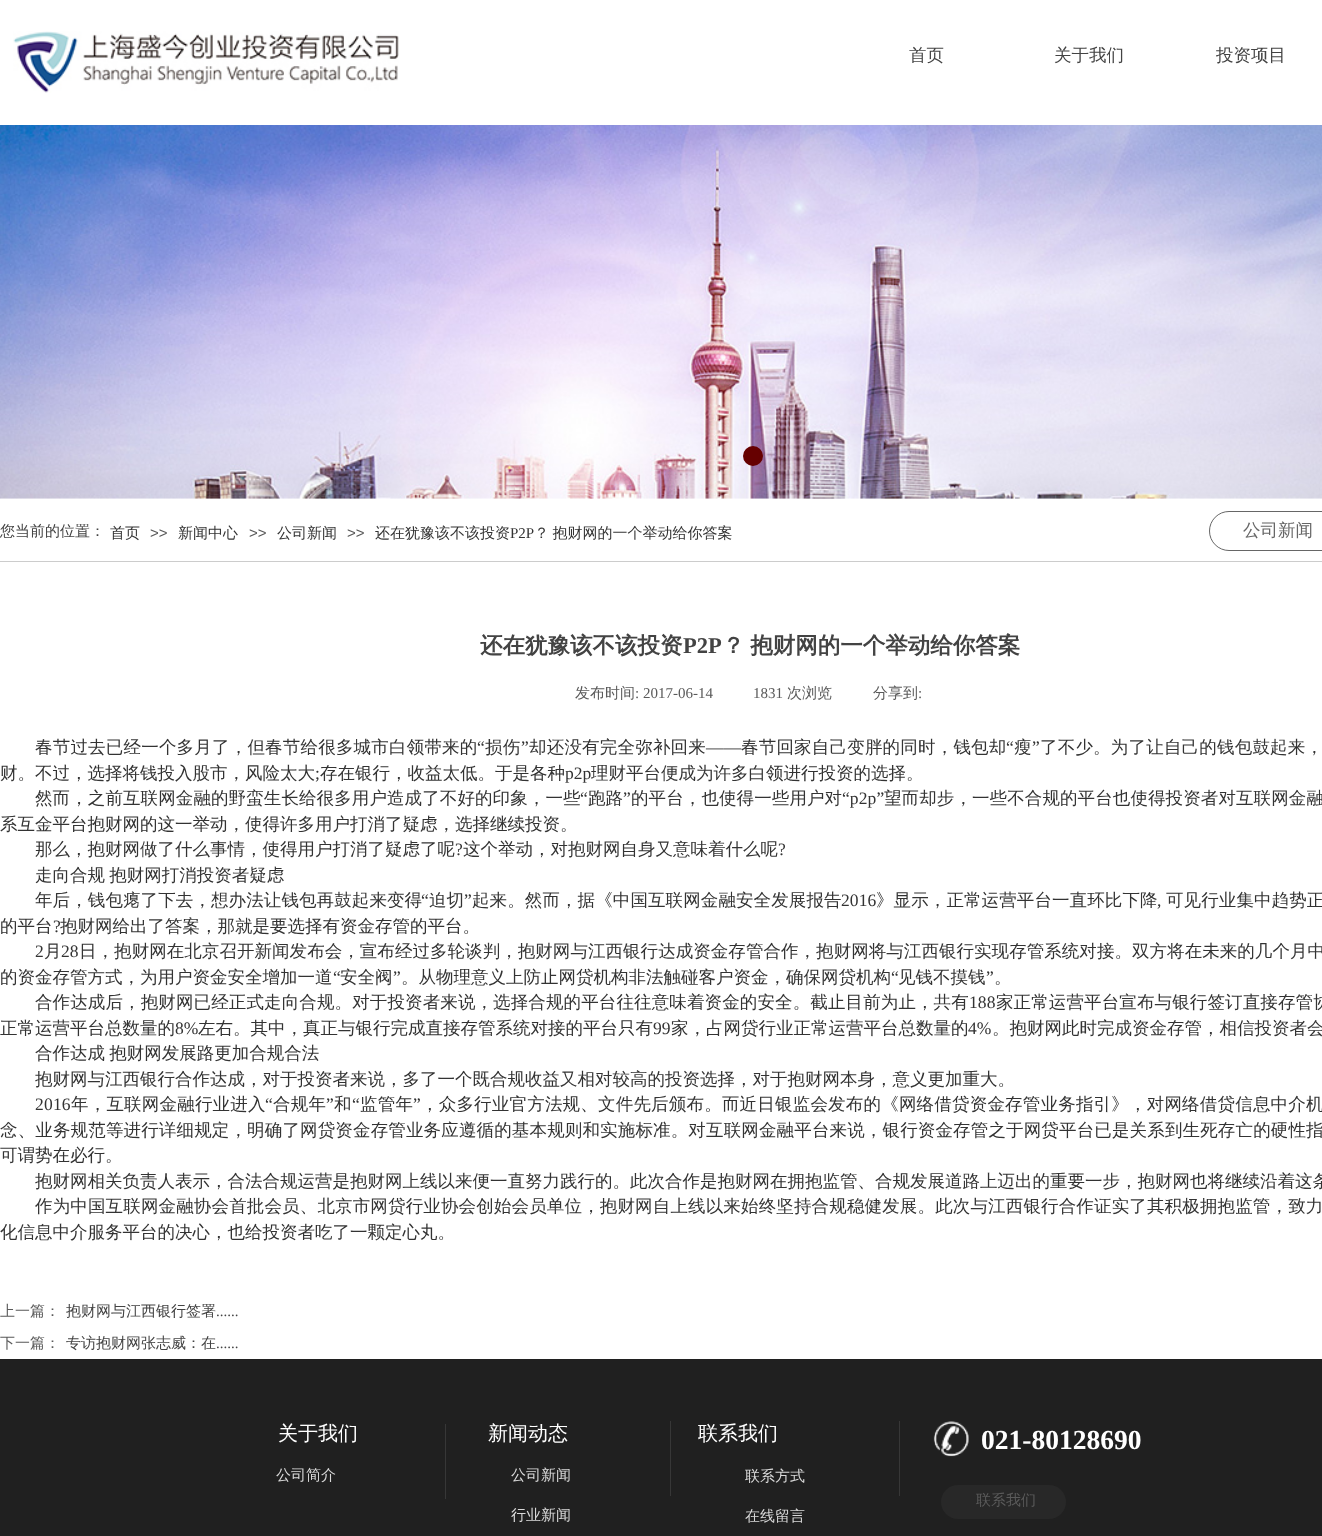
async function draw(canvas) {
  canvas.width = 1322;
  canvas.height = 1536;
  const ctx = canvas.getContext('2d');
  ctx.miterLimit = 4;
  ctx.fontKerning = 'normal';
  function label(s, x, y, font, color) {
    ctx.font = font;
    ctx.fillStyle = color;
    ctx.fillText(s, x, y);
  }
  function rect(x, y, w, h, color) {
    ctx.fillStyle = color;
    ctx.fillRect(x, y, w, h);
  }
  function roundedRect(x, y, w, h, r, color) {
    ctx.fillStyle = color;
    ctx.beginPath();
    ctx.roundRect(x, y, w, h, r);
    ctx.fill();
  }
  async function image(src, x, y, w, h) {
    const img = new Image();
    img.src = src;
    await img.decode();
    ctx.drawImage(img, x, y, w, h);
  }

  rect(0, 0, 1322, 1536, '#fff');
  await image('assets/img1.png', 13, 31, 386, 62);
  label('首页', 909, 61, '500 17.5px WenQuanYi Zen Hei', '#434343');
  label('关于我们', 1054, 61, '500 17.5px WenQuanYi Zen Hei', '#434343');
  label('投资项目', 1216, 61, '500 17.5px WenQuanYi Zen Hei', '#434343');
  await image('assets/img2.png', 0, 125, 1322, 374);
  ctx.fillStyle = '#600';
  ctx.beginPath();
  ctx.arc(753, 456, 8.5, 0, 2 * Math.PI);
  ctx.fill();
  ctx.strokeStyle = '#600';
  ctx.lineWidth = 3;
  ctx.stroke();
  label('您当前的位置：', 0, 536, '500 15px WenQuanYi Zen Hei', '#434343');
  label('首页', 110, 538, '500 15px WenQuanYi Zen Hei', '#333');
  label('>>', 150, 538, '15px Liberation Sans', '#5a5a5a');
  label('新闻中心', 178, 538, '500 15px WenQuanYi Zen Hei', '#333');
  label('>>', 249, 538, '15px Liberation Sans', '#5a5a5a');
  label('公司新闻', 277, 538, '500 15px WenQuanYi Zen Hei', '#333');
  label('>>', 347, 538, '15px Liberation Sans', '#5a5a5a');
  label('还在犹豫该不该投资', 375, 538, '500 15px WenQuanYi Zen Hei', '#333');
  label('P2P', 510, 538, '15px Liberation Serif', '#333');
  ctx.wordSpacing = '-1px';
  label('？ 抱财网的一个举动给你答案', 534, 538, '500 15px WenQuanYi Zen Hei', '#333');
  ctx.beginPath();
  ctx.roundRect(1209.5, 511.5, 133, 39, 19.5);
  ctx.strokeStyle = '#666';
  ctx.lineWidth = 1;
  ctx.stroke();
  ctx.wordSpacing = '0px';
  label('公司新闻', 1243, 536, '500 17.5px WenQuanYi Zen Hei', '#666');
  rect(0, 561, 1322, 1, '#ccc');
  label('还在犹豫该不该投资', 480, 653, 'bold 22.5px WenQuanYi Zen Hei', '#434343');
  label('P2P', 683, 653, 'bold 22.5px Liberation Serif', '#434343');
  ctx.wordSpacing = '-1px';
  label('？ 抱财网的一个举动给你答案', 722, 653, 'bold 22.5px WenQuanYi Zen Hei', '#434343');
  ctx.wordSpacing = '0px';
  label('发布时间', 575, 698, '500 15px WenQuanYi Zen Hei', '#5a5a5a');
  label(': 2017-06-14', 635, 698, '15px Liberation Serif', '#5a5a5a');
  label('1831', 753, 698, '15px Liberation Serif', '#5a5a5a');
  label('次浏览', 787, 698, '500 15px WenQuanYi Zen Hei', '#5a5a5a');
  label('分享到', 873, 698, '500 15px WenQuanYi Zen Hei', '#5a5a5a');
  label(':', 918, 698, '15px Liberation Serif', '#5a5a5a');
  ctx.letterSpacing = '0.2px';
  label('春节过去已经一个多月了，但春节给很多城市白领带来的', 35, 753, '500 17.5px WenQuanYi Zen Hei', '#333');
  label('“', 477, 753, '17.5px Liberation Serif', '#333');
  label('损伤', 485, 753, '500 17.5px WenQuanYi Zen Hei', '#333');
  label('”', 521, 753, '17.5px Liberation Serif', '#333');
  label('却还没有完全弥补回来', 529, 753, '500 17.5px WenQuanYi Zen Hei', '#333');
  label('春节回家自己变胖的同时，钱包却', 741, 753, '500 17.5px WenQuanYi Zen Hei', '#333');
  label('“', 1006, 753, '17.5px Liberation Serif', '#333');
  label('瘦', 1014, 753, '500 17.5px WenQuanYi Zen Hei', '#333');
  label('”', 1032, 753, '17.5px Liberation Serif', '#333');
  label('了不少。为了让自己的钱包鼓起来，', 1040, 753, '500 17.5px WenQuanYi Zen Hei', '#333');
  label('——', 706, 753, '17.5px Liberation Serif', '#333');
  ctx.letterSpacing = '0px';
  label('财。不过，选择将钱投入股市，风险太大', 0, 779, '500 17.5px WenQuanYi Zen Hei', '#333');
  label(';', 315, 779, '17.5px Liberation Serif', '#333');
  label('存在银行，收益太低。于是各种', 320, 779, '500 17.5px WenQuanYi Zen Hei', '#333');
  label('p2p', 565, 779, '17.5px Liberation Serif', '#333');
  label('理财平台便成为许多白领进行投资的选择。', 591, 779, '500 17.5px WenQuanYi Zen Hei', '#333');
  ctx.letterSpacing = '0.1px';
  label('然而，之前互联网金融的野蛮生长给很多用户造成了不好的印象，一些', 35, 804, '500 17.5px WenQuanYi Zen Hei', '#333');
  label('“', 580, 804, '17.5px Liberation Serif', '#333');
  label('跑路', 588, 804, '500 17.5px WenQuanYi Zen Hei', '#333');
  label('”', 623, 804, '17.5px Liberation Serif', '#333');
  label('的平台，也使得一些用户对', 631, 804, '500 17.5px WenQuanYi Zen Hei', '#333');
  label('“p2p”', 842, 804, '17.5px Liberation Serif', '#333');
  label('望而却步，一些不合规的平台也使得投资者对互联网金融', 884, 804, '500 17.5px WenQuanYi Zen Hei', '#333');
  ctx.letterSpacing = '0px';
  label('系互金平台抱财网的这一举动，使得许多用户打消了疑虑，选择继续投资。', 0, 830, '500 17.5px WenQuanYi Zen Hei', '#333');
  label('那么，抱财网做了什么事情，使得用户打消了疑虑了呢', 35, 855, '500 17.5px WenQuanYi Zen Hei', '#333');
  label('?', 455, 855, '17.5px Liberation Serif', '#333');
  label('这个举动，对抱财网自身又意味着什么呢', 463, 855, '500 17.5px WenQuanYi Zen Hei', '#333');
  label('?', 778, 855, '17.5px Liberation Serif', '#333');
  ctx.wordSpacing = '-1px';
  label('走向合规 抱财网打消投资者疑虑', 35, 881, '500 17.5px WenQuanYi Zen Hei', '#333');
  ctx.letterSpacing = '0.1px';
  ctx.wordSpacing = '0px';
  label('年后，钱包瘪了下去，想办法让钱包再鼓起来变得', 35, 906, '500 17.5px WenQuanYi Zen Hei', '#333');
  label('“', 421, 906, '17.5px Liberation Serif', '#333');
  label('迫切', 429, 906, '500 17.5px WenQuanYi Zen Hei', '#333');
  label('”', 464, 906, '17.5px Liberation Serif', '#333');
  label('起来。然而，据《中国互联网金融安全发展报告', 472, 906, '500 17.5px WenQuanYi Zen Hei', '#333');
  label('2016', 841, 906, '17.5px Liberation Serif', '#333');
  label('》显示，正常运营平台一直环比下降', 876, 906, '500 17.5px WenQuanYi Zen Hei', '#333');
  label(',', 1157, 906, '17.5px Liberation Serif', '#333');
  label('可见行业集中趋势正', 1166, 906, '500 17.5px WenQuanYi Zen Hei', '#333');
  ctx.letterSpacing = '0px';
  label('的平台', 0, 932, '500 17.5px WenQuanYi Zen Hei', '#333');
  label('?', 53, 932, '17.5px Liberation Serif', '#333');
  label('抱财网给出了答案，那就是要选择有资金存管的平台。', 60, 932, '500 17.5px WenQuanYi Zen Hei', '#333');
  ctx.letterSpacing = '0.05px';
  label('2', 35, 957, '17.5px Liberation Serif', '#333');
  label('月', 44, 957, '500 17.5px WenQuanYi Zen Hei', '#333');
  label('28', 61, 957, '17.5px Liberation Serif', '#333');
  label('日，抱财网在北京召开新闻发布会，宣布经过多轮谈判，抱财网与江西银行达成资金存管合作，抱财网将与江西银行实现存管系统对接。双方将在未来的几个月中', 79, 957, '500 17.5px WenQuanYi Zen Hei', '#333');
  ctx.letterSpacing = '0px';
  label('的资金存管方式，为用户资金安全增加一道', 0, 983, '500 17.5px WenQuanYi Zen Hei', '#333');
  label('“', 333, 983, '17.5px Liberation Serif', '#333');
  label('安全阀', 340, 983, '500 17.5px WenQuanYi Zen Hei', '#333');
  label('”', 393, 983, '17.5px Liberation Serif', '#333');
  label('。从物理意义上防止网贷机构非法触碰客户资金，确保网贷机构', 401, 983, '500 17.5px WenQuanYi Zen Hei', '#333');
  label('“', 891, 983, '17.5px Liberation Serif', '#333');
  label('见钱不摸钱', 898, 983, '500 17.5px WenQuanYi Zen Hei', '#333');
  label('”', 986, 983, '17.5px Liberation Serif', '#333');
  label('。', 994, 983, '500 17.5px WenQuanYi Zen Hei', '#333');
  ctx.letterSpacing = '0.12px';
  label('合作达成后，抱财网已经正式走向合规。对于投资者来说，选择合规的平台往往意味着资金的安全。截止目前为止，共有', 35, 1008, '500 17.5px WenQuanYi Zen Hei', '#333');
  label('188', 969, 1008, '17.5px Liberation Serif', '#333');
  label('家正常运营平台宣布与银行签订直接存管协', 996, 1008, '500 17.5px WenQuanYi Zen Hei', '#333');
  ctx.letterSpacing = '0px';
  label('正常运营平台总数量的', 0, 1034, '500 17.5px WenQuanYi Zen Hei', '#333');
  label('8%', 175, 1034, '17.5px Liberation Serif', '#333');
  label('左右。其中，真正与银行完成直接存管系统对接的平台只有', 198, 1034, '500 17.5px WenQuanYi Zen Hei', '#333');
  label('99', 653, 1034, '17.5px Liberation Serif', '#333');
  label('家，占网贷行业正常运营平台总数量的', 671, 1034, '500 17.5px WenQuanYi Zen Hei', '#333');
  label('4%', 968, 1034, '17.5px Liberation Serif', '#333');
  label('。抱财网此时完成资金存管，相信投资者会', 992, 1034, '500 17.5px WenQuanYi Zen Hei', '#333');
  ctx.wordSpacing = '-1px';
  label('合作达成 抱财网发展路更加合规合法', 35, 1059, '500 17.5px WenQuanYi Zen Hei', '#333');
  ctx.wordSpacing = '0px';
  label('抱财网与江西银行合作达成，对于投资者来说，多了一个既合规收益又相对较高的投资选择，对于抱财网本身，意义更加重大。', 35, 1085, '500 17.5px WenQuanYi Zen Hei', '#333');
  ctx.letterSpacing = '0.2px';
  label('2016', 35, 1110, '17.5px Liberation Serif', '#333');
  label('年，互联网金融行业进入', 71, 1110, '500 17.5px WenQuanYi Zen Hei', '#333');
  label('“', 265, 1110, '17.5px Liberation Serif', '#333');
  label('合规年', 273, 1110, '500 17.5px WenQuanYi Zen Hei', '#333');
  label('”', 326, 1110, '17.5px Liberation Serif', '#333');
  label('和', 334, 1110, '500 17.5px WenQuanYi Zen Hei', '#333');
  label('“', 352, 1110, '17.5px Liberation Serif', '#333');
  label('监管年', 360, 1110, '500 17.5px WenQuanYi Zen Hei', '#333');
  label('”', 413, 1110, '17.5px Liberation Serif', '#333');
  label('，众多行业官方法规、文件先后颁布。而近日银监会发布的《网络借贷资金存管业务指引》，对网络借贷信息中介机', 421, 1110, '500 17.5px WenQuanYi Zen Hei', '#333');
  ctx.letterSpacing = '0.15px';
  label('念、业务规范等进行详细规定，明确了网贷资金存管业务应遵循的基本规则和实施标准。对互联网金融平台来说，银行资金存管之于网贷平台已是关系到生死存亡的硬性指', 0, 1136, '500 17.5px WenQuanYi Zen Hei', '#333');
  ctx.letterSpacing = '0px';
  label('可谓势在必行。', 0, 1161, '500 17.5px WenQuanYi Zen Hei', '#333');
  label('抱财网相关负责人表示，合法合规运营是抱财网上线以来便一直努力践行的。此次合作是抱财网在拥抱监管、合规发展道路上迈出的重要一步，抱财网也将继续沿着这条', 35, 1187, '500 17.5px WenQuanYi Zen Hei', '#333');
  ctx.letterSpacing = '0.15px';
  label('作为中国互联网金融协会首批会员、北京市网贷行业协会创始会员单位，抱财网自上线以来始终坚持合规稳健发展。此次与江西银行合作证实了其积极拥抱监管，致力', 35, 1212, '500 17.5px WenQuanYi Zen Hei', '#333');
  ctx.letterSpacing = '0px';
  label('化信息中介服务平台的决心，也给投资者吃了一颗定心丸。', 0, 1238, '500 17.5px WenQuanYi Zen Hei', '#333');
  label('上一篇：', 0, 1316, '500 15px WenQuanYi Zen Hei', '#5a5a5a');
  label('抱财网与江西银行签署', 66, 1316, '500 15px WenQuanYi Zen Hei', '#434343');
  label('......', 216, 1316, '15px Liberation Serif', '#434343');
  label('下一篇：', 0, 1348, '500 15px WenQuanYi Zen Hei', '#5a5a5a');
  label('专访抱财网张志威：在', 66, 1348, '500 15px WenQuanYi Zen Hei', '#434343');
  label('......', 216, 1348, '15px Liberation Serif', '#434343');
  rect(0, 1359, 1322, 177, '#202020');
  rect(670, 1421, 1, 75, '#373737');
  rect(899, 1421, 1, 75, '#373737');
  await image('assets/img3.png', 933, 1421, 36, 36);
  label('关于我们', 278, 1440, '500 20px WenQuanYi Zen Hei', '#fff');
  label('新闻动态', 488, 1440, '500 20px WenQuanYi Zen Hei', '#fff');
  label('联系我们', 698, 1440, '500 20px WenQuanYi Zen Hei', '#fff');
  rect(445, 1424, 1, 75, '#373737');
  label('021-80128690', 981, 1449, 'bold 27.5px Liberation Serif', '#fff');
  label('公司简介', 276, 1480, '500 15px WenQuanYi Zen Hei', '#d9d9d9');
  label('公司新闻', 511, 1480, '500 15px WenQuanYi Zen Hei', '#d9d9d9');
  label('行业新闻', 511, 1520, '500 15px WenQuanYi Zen Hei', '#d9d9d9');
  label('联系方式', 745, 1481, '500 15px WenQuanYi Zen Hei', '#d9d9d9');
  label('在线留言', 745, 1521, '500 15px WenQuanYi Zen Hei', '#d9d9d9');
  roundedRect(941, 1485, 125, 34, 17, '#282828');
  label('联系我们', 976, 1505, '500 15px WenQuanYi Zen Hei', '#5a5a5a');
}

draw(document.querySelector('canvas'));
